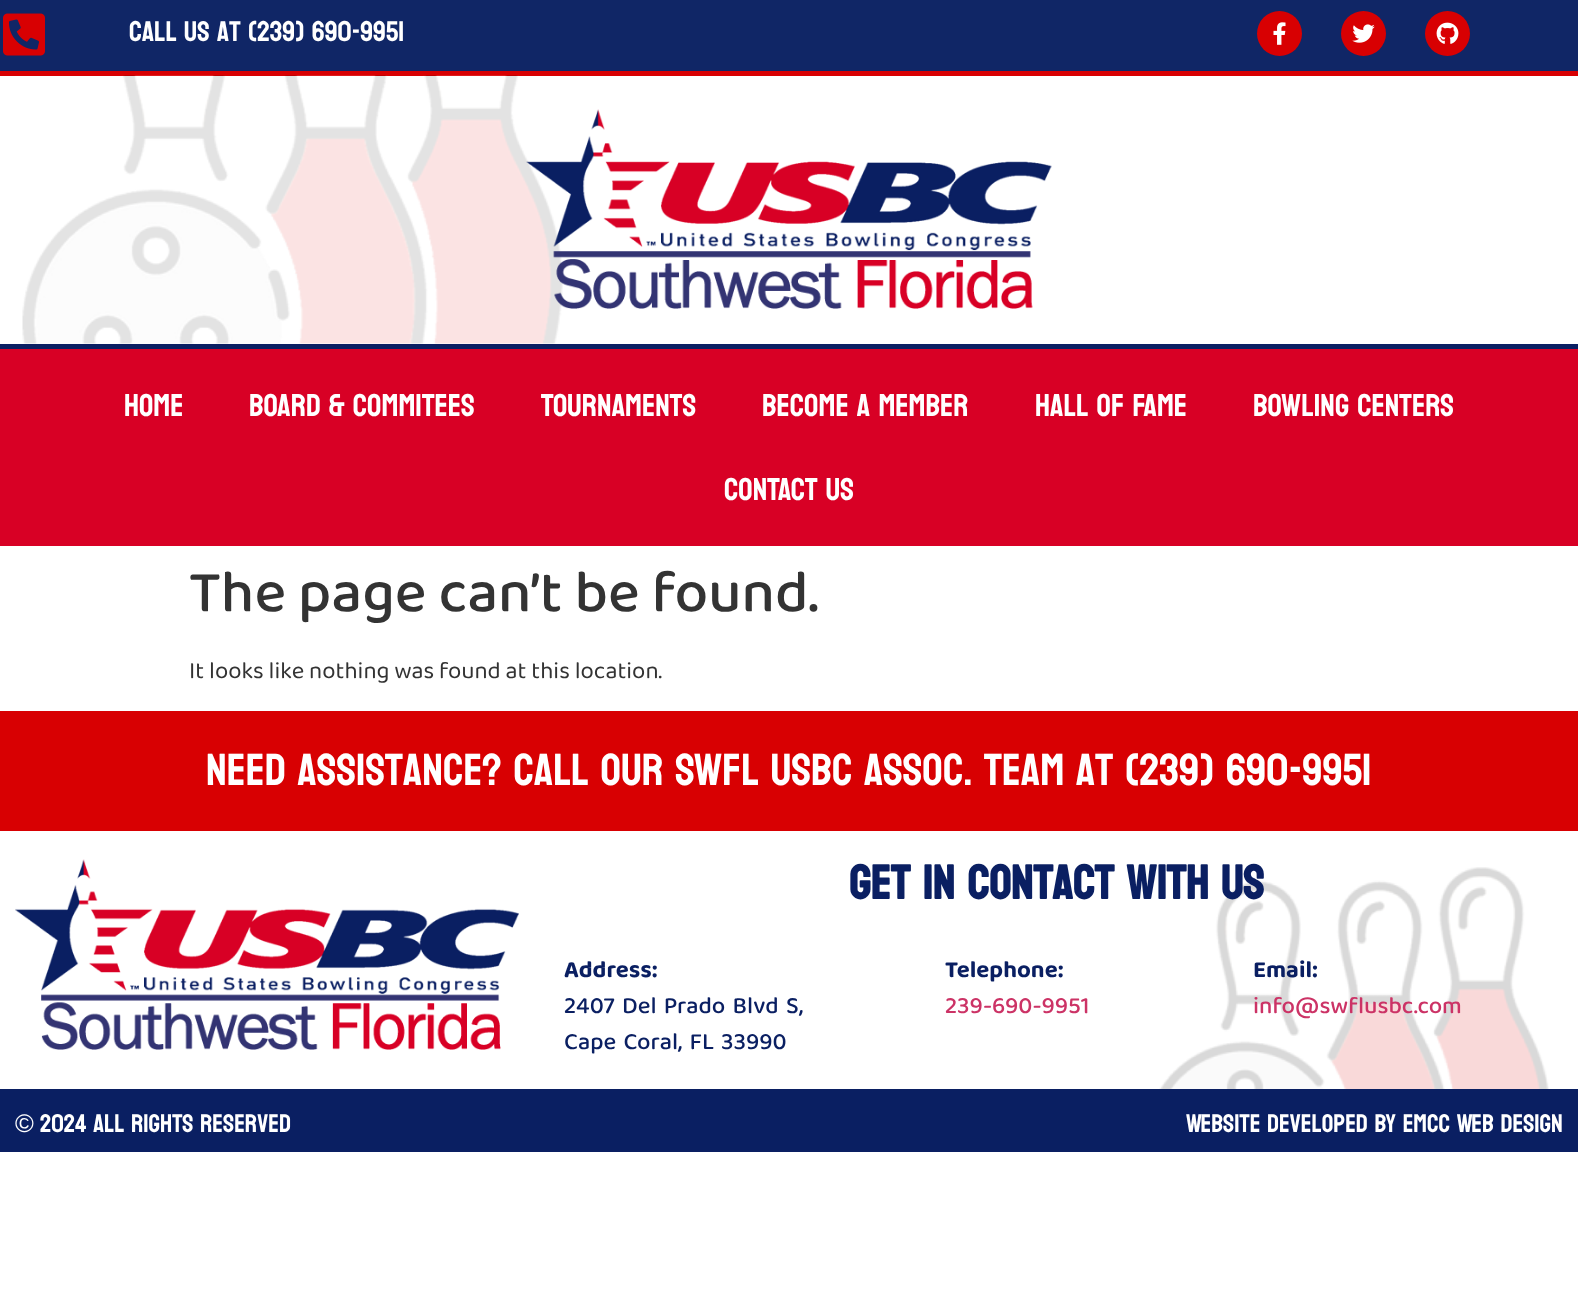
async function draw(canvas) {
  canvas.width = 1578;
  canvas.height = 1305;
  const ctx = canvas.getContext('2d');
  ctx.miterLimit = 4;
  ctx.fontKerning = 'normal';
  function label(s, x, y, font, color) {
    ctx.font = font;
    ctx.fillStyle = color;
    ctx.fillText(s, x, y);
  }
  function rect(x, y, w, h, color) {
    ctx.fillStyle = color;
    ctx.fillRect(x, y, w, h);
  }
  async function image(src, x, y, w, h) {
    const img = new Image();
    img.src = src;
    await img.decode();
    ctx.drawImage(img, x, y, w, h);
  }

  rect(0, 0, 1578, 1305, '#fff');
  rect(0, 0, 1578, 71, '#102666');
  rect(0, 71, 1578, 5, '#d80002');
  await image('assets/img1.png', 3, 13, 42, 43);
  label('Call Us at (239) 690-9951', 129, 41, '28.5px Koulen', '#fff');
  ctx.fillStyle = '#d80002';
  ctx.beginPath();
  ctx.arc(1279.5, 33.5, 22.5, 0, 2 * Math.PI);
  ctx.fill();
  await image('assets/img2.png', 1273, 22, 13, 23);
  ctx.beginPath();
  ctx.arc(1363.5, 33.5, 22.5, 0, 2 * Math.PI);
  ctx.fill();
  await image('assets/img3.png', 1352, 24, 23, 19);
  ctx.beginPath();
  ctx.arc(1447.5, 33.5, 22.5, 0, 2 * Math.PI);
  ctx.fill();
  await image('assets/img4.png', 1436, 22, 23, 22);
  await image('assets/img5.png', 22, 75, 541, 269);
  await image('assets/img6.png', 526, 109, 526, 200);
  rect(0, 349, 1578, 197, '#d80025');
  rect(0, 344, 1578, 5, '#0a1f62');
  label('HOME', 124, 416, '31.5px Koulen', '#fff');
  label('BOARD & COMMITEES', 249, 416, '31.5px Koulen', '#fff');
  label('TOURNAMENTS', 541, 416, '31.5px Koulen', '#fff');
  label('BECOME A MEMBER', 762, 416, '31.5px Koulen', '#fff');
  label('HALL OF FAME', 1035, 416, '31.5px Koulen', '#fff');
  label('BOWLING CENTERS', 1253, 416, '31.5px Koulen', '#fff');
  label('CONTACT US', 724, 500, '31.5px Koulen', '#fff');
  label('The page can’t be found.', 189, 611, '500 60px "Baloo 2"', '#333');
  label('It looks like nothing was found at this location.', 189, 678, '24px "Baloo 2"', '#333');
  rect(0, 711, 1578, 120, '#d80002');
  label('Need Assistance? Call our SWFL USBC ASSOC. team at (239) 690-9951', 206, 785, '45px Koulen', '#fff');
  await image('assets/img7.png', 15, 859, 504, 191);
  await image('assets/img8.png', 1159, 867, 390, 222);
  label('Get In Contact With Us', 849, 899, 'bold 48px Koulen', '#0a1f62');
  label('Address:', 564, 977, 'bold 24px "Baloo 2"', '#0a1f62');
  ctx.wordSpacing = '2.5px';
  label('2407 Del Prado Blvd S,', 564, 1013, '500 24px "Baloo 2"', '#0a1f62');
  label('Cape Coral, FL 33990', 564, 1049, '500 24px "Baloo 2"', '#0a1f62');
  ctx.wordSpacing = '0px';
  label('Telephone:', 945, 977, 'bold 24px "Baloo 2"', '#0a1f62');
  label('239-690-9951', 945, 1013, '500 24px "Baloo 2"', '#c36');
  label('Email:', 1253, 977, 'bold 24px "Baloo 2"', '#0a1f62');
  label('info@swflusbc.com', 1253, 1013, '500 24px "Baloo 2"', '#c36');
  rect(0, 1089, 1578, 63, '#0a1f62');
  label('©', 15, 1132, '25.5px Liberation Sans', '#fff');
  label('2024 All rights reserved', 40, 1132, '25.5px Koulen', '#fff');
  label('Website developed by Emcc Web Design', 1186, 1132, '25.5px Koulen', '#fff');
}

draw(document.querySelector('canvas'));
